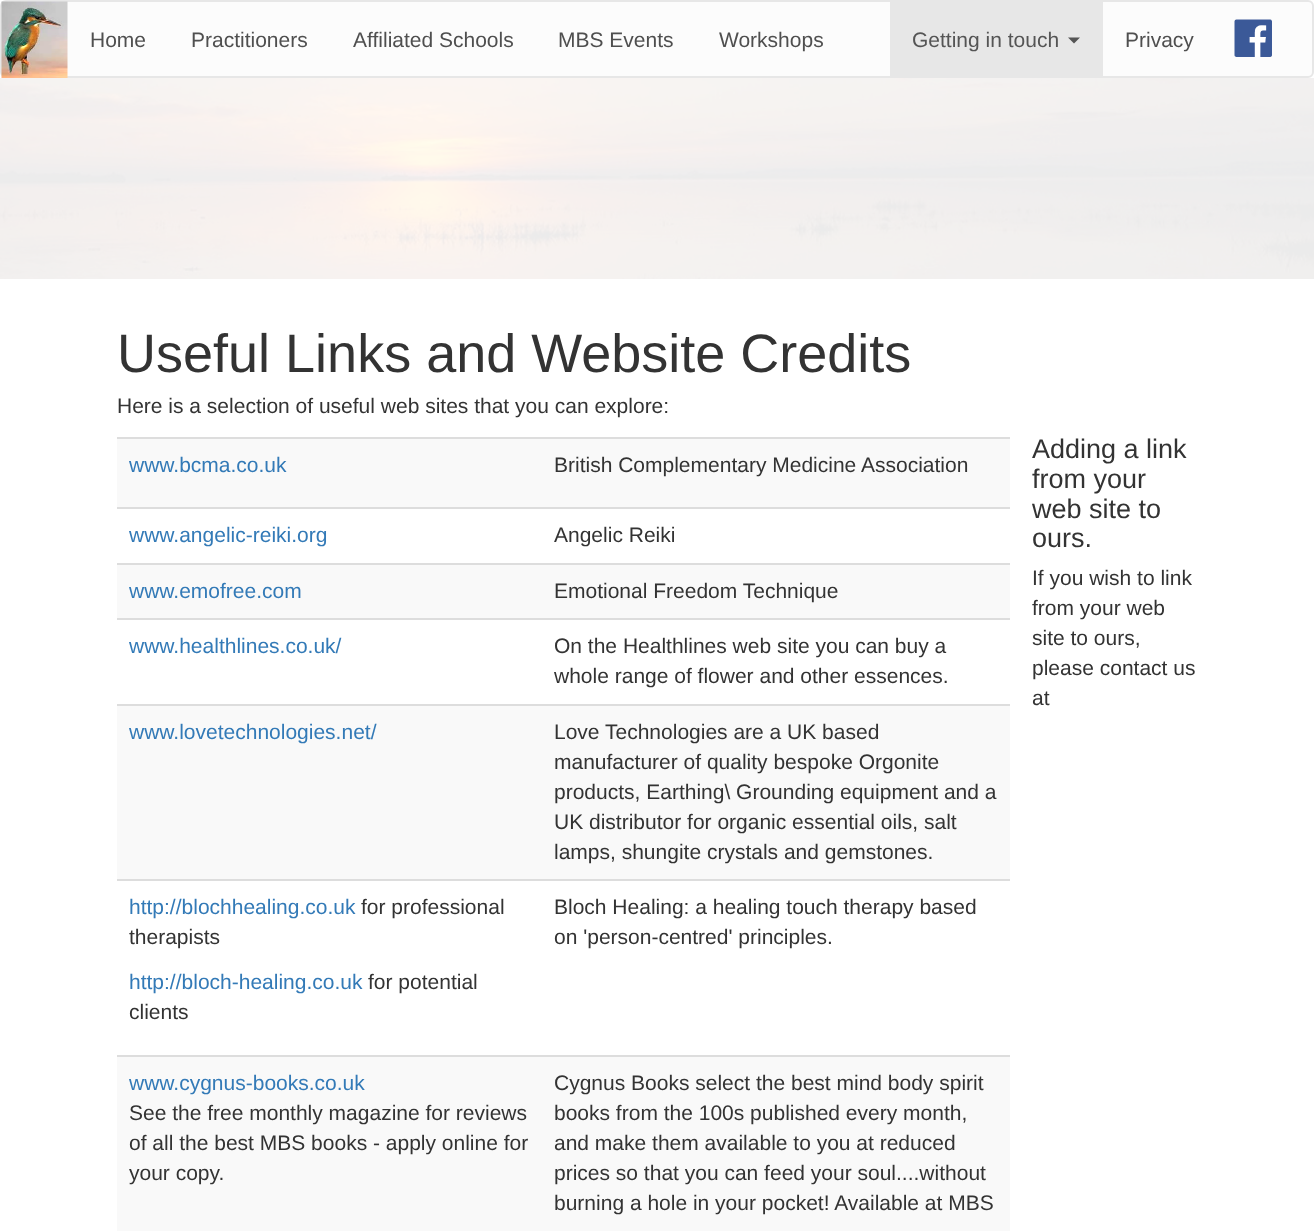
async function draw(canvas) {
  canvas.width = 1314;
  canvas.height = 1231;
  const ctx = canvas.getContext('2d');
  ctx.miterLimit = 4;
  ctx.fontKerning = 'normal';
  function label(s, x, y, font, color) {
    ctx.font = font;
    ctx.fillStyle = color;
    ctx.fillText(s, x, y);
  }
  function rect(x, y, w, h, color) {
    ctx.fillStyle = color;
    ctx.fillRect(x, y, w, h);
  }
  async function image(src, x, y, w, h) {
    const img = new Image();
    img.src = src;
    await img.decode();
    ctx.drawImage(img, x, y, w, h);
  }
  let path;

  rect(0, 0, 1314, 1231, '#fff');
  ctx.fillStyle = '#fcfcfc';
  ctx.beginPath();
  ctx.roundRect(1, 1, 1312, 76, 5);
  ctx.fill();
  ctx.strokeStyle = '#e7e7e7';
  ctx.lineWidth = 2;
  ctx.stroke();
  await image('assets/img1.png', 1, 1, 67, 77);
  label('Home', 90, 47, '21px Liberation Sans', '#4f4f4f');
  label('Practitioners', 191, 47, '21px Liberation Sans', '#4f4f4f');
  label('Affiliated Schools', 353, 47, '21px Liberation Sans', '#4f4f4f');
  label('MBS Events', 558, 47, '21px Liberation Sans', '#4f4f4f');
  label('Workshops', 719, 47, '21px Liberation Sans', '#4f4f4f');
  rect(890, 2, 213, 74, '#e7e7e7');
  label('Getting in touch', 912, 47, '21px Liberation Sans', '#555');
  path = new Path2D('M1068 37.5H1080L1074 43.5Z');
  ctx.fill(path);
  label('Privacy', 1125, 47, '21px Liberation Sans', '#4f4f4f');
  await image('assets/img2.png', 1234, 19, 38, 38);
  await image('assets/img3.png', 0, 78, 1314, 201);
  label('Useful Links and Website Credits', 117, 372, '54px Liberation Sans', '#333');
  label('Here is a selection of useful web sites that you can explore:', 117, 413, '21px Liberation Sans', '#333');
  rect(117, 439, 893, 68, '#f9f9f9');
  label('www.bcma.co.uk', 129, 472, '21px Liberation Sans', '#337ab7');
  rect(117, 437, 893, 2, '#ddd');
  label('British Complementary Medicine Association', 554, 472, '21px Liberation Sans', '#333');
  label('www.angelic-reiki.org', 129, 542, '21px Liberation Sans', '#337ab7');
  rect(117, 507, 893, 2, '#ddd');
  label('Angelic Reiki', 554, 542, '21px Liberation Sans', '#333');
  rect(117, 565, 893, 53, '#f9f9f9');
  label('www.emofree.com', 129, 598, '21px Liberation Sans', '#337ab7');
  rect(117, 563, 893, 2, '#ddd');
  label('Emotional Freedom Technique', 554, 598, '21px Liberation Sans', '#333');
  label('www.healthlines.co.uk/', 129, 653, '21px Liberation Sans', '#337ab7');
  rect(117, 618, 893, 2, '#ddd');
  label('On the Healthlines web site you can buy a', 554, 653, '21px Liberation Sans', '#333');
  label('whole range of flower and other essences.', 554, 683, '21px Liberation Sans', '#333');
  rect(117, 706, 893, 173, '#f9f9f9');
  label('www.lovetechnologies.net/', 129, 739, '21px Liberation Sans', '#337ab7');
  rect(117, 704, 893, 2, '#ddd');
  label('Love Technologies are a UK based', 554, 739, '21px Liberation Sans', '#333');
  label('manufacturer of quality bespoke Orgonite', 554, 769, '21px Liberation Sans', '#333');
  label('products, Earthing\\ Grounding equipment and a', 554, 799, '21px Liberation Sans', '#333');
  label('UK distributor for organic essential oils, salt', 554, 829, '21px Liberation Sans', '#333');
  label('lamps, shungite crystals and gemstones.', 554, 859, '21px Liberation Sans', '#333');
  label('http://blochhealing.co.uk', 129, 914, '21px Liberation Sans', '#337ab7');
  label('for professional', 361, 914, '21px Liberation Sans', '#333');
  label('therapists', 129, 944, '21px Liberation Sans', '#333');
  label('http://bloch-healing.co.uk', 129, 989, '21px Liberation Sans', '#337ab7');
  label('for potential', 368, 989, '21px Liberation Sans', '#333');
  label('clients', 129, 1019, '21px Liberation Sans', '#333');
  rect(117, 879, 893, 2, '#ddd');
  label('Bloch Healing: a healing touch therapy based', 554, 914, '21px Liberation Sans', '#333');
  label('on \'person-centred\' principles.', 554, 944, '21px Liberation Sans', '#333');
  rect(117, 1057, 893, 174, '#f9f9f9');
  label('www.cygnus-books.co.uk', 129, 1090, '21px Liberation Sans', '#337ab7');
  label('See the free monthly magazine for reviews', 129, 1120, '21px Liberation Sans', '#333');
  label('of all the best MBS books - apply online for', 129, 1150, '21px Liberation Sans', '#333');
  label('your copy.', 129, 1180, '21px Liberation Sans', '#333');
  rect(117, 1055, 893, 2, '#ddd');
  label('Cygnus Books select the best mind body spirit', 554, 1090, '21px Liberation Sans', '#333');
  label('books from the 100s published every month,', 554, 1120, '21px Liberation Sans', '#333');
  label('and make them available to you at reduced', 554, 1150, '21px Liberation Sans', '#333');
  label('prices so that you can feed your soul....without', 554, 1180, '21px Liberation Sans', '#333');
  label('burning a hole in your pocket! Available at MBS', 554, 1210, '21px Liberation Sans', '#333');
  label('Adding a link', 1032, 458, '27px Liberation Sans', '#333');
  label('from your', 1032, 488, '27px Liberation Sans', '#333');
  label('web site to', 1032, 518, '27px Liberation Sans', '#333');
  label('ours.', 1032, 547, '27px Liberation Sans', '#333');
  label('If you wish to link', 1032, 585, '21px Liberation Sans', '#333');
  label('from your web', 1032, 615, '21px Liberation Sans', '#333');
  label('site to ours,', 1032, 645, '21px Liberation Sans', '#333');
  label('please contact us', 1032, 675, '21px Liberation Sans', '#333');
  label('at', 1032, 705, '21px Liberation Sans', '#333');
}

draw(document.querySelector('canvas'));
